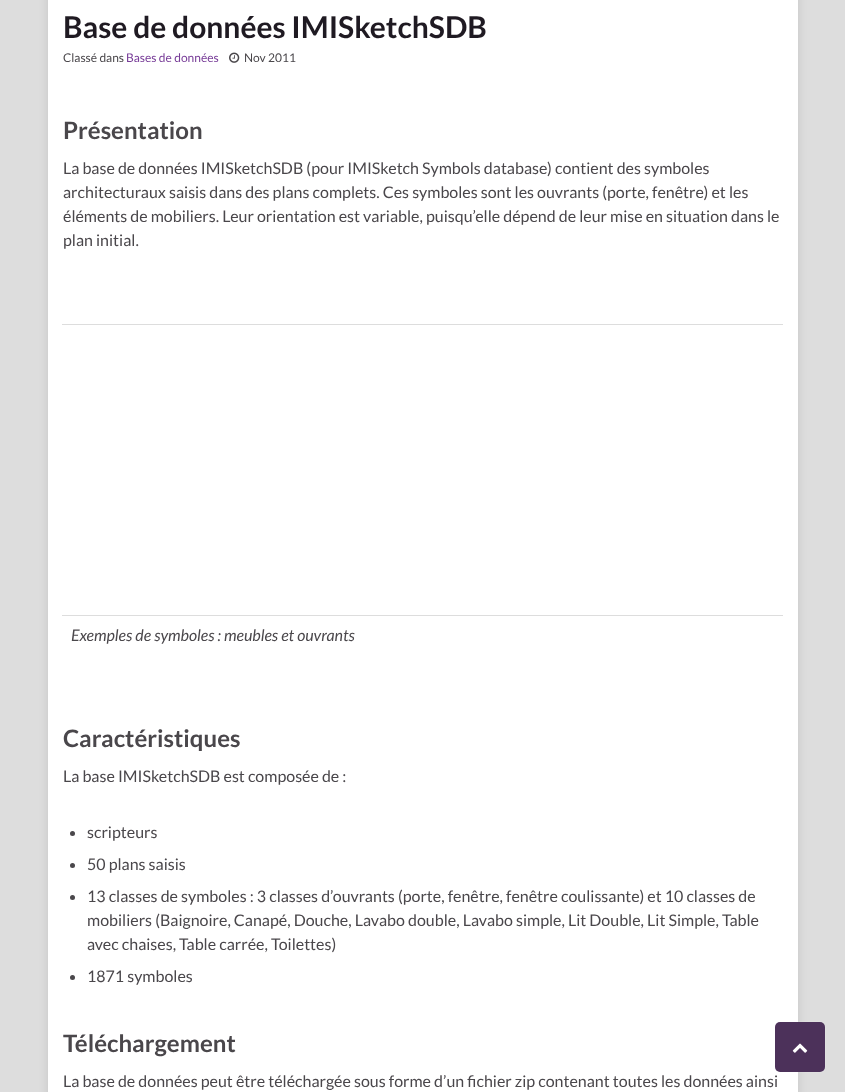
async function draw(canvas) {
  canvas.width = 845;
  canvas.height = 1092;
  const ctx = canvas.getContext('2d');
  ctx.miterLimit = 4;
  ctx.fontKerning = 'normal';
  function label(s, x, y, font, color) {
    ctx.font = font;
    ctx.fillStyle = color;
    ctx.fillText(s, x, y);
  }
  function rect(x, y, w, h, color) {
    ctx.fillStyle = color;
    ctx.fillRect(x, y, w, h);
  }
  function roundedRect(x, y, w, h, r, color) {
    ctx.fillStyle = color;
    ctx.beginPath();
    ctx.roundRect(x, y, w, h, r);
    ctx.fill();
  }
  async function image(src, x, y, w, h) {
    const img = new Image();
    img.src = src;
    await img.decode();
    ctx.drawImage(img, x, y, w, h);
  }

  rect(0, 0, 845, 1092, '#ddd');
  ctx.fillStyle = '#0000001a';
  ctx.filter = 'blur(5px)';
  ctx.beginPath();
  ctx.rect(48, -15, 750, 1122);
  ctx.fill();
  ctx.filter = 'none';
  rect(48, 0, 750, 1092, '#fff');
  label('Base de données IMISketchSDB', 63, 38, 'bold 30px Lato', '#1f1a22');
  label('Classé dans', 63, 62, '12px Lato', '#4a474b');
  label('Bases de données', 126, 62, '12px Lato', '#783d98');
  await image('assets/img1.png', 229, 52, 11, 11);
  label('Nov 2011', 244, 62, '12px Lato', '#4a474b');
  label('Présentation', 63, 139, 'bold 24px Lato', '#4a474b');
  label('La base de données IMISketchSDB (pour IMISketch Symbols database) contient des symboles', 63, 174, '16px Lato', '#4a474b');
  label('architecturaux saisis dans des plans complets. Ces symboles sont les ouvrants (porte, fenêtre) et les', 63, 198, '16px Lato', '#4a474b');
  label('éléments de mobiliers. Leur orientation est variable, puisqu’elle dépend de leur mise en situation dans le', 63, 222, '16px Lato', '#4a474b');
  label('plan initial.', 63, 246, '16px Lato', '#4a474b');
  rect(62, 324, 721, 1, '#ddd');
  rect(62, 615, 721, 1, '#ddd');
  label('Exemples de symboles : meubles et ouvrants', 71, 641, 'italic 16px Lato', '#4a474b');
  label('Caractéristiques', 63, 747, 'bold 24px Lato', '#4a474b');
  label('La base IMISketchSDB est composée de :', 63, 782, '16px Lato', '#4a474b');
  ctx.beginPath();
  ctx.arc(72.5, 833.5, 2.5, 0, 2 * Math.PI);
  ctx.fill();
  label('scripteurs', 87, 838, '16px Lato', '#4a474b');
  ctx.beginPath();
  ctx.arc(72.5, 865.5, 2.5, 0, 2 * Math.PI);
  ctx.fill();
  label('50 plans saisis', 87, 870, '16px Lato', '#4a474b');
  ctx.beginPath();
  ctx.arc(72.5, 897.5, 2.5, 0, 2 * Math.PI);
  ctx.fill();
  label('13 classes de symboles : 3 classes d’ouvrants (porte, fenêtre, fenêtre coulissante) et 10 classes de', 87, 902, '16px Lato', '#4a474b');
  label('mobiliers (Baignoire, Canapé, Douche, Lavabo double, Lavabo simple, Lit Double, Lit Simple, Table', 87, 926, '16px Lato', '#4a474b');
  label('avec chaises, Table carrée, Toilettes)', 87, 950, '16px Lato', '#4a474b');
  ctx.beginPath();
  ctx.arc(72.5, 977.5, 2.5, 0, 2 * Math.PI);
  ctx.fill();
  label('1871 symboles', 87, 982, '16px Lato', '#4a474b');
  label('Téléchargement', 63, 1052, 'bold 24px Lato', '#4a474b');
  label('La base de données peut être téléchargée sous forme d’un fichier zip contenant toutes les données ainsi', 63, 1087, '16px Lato', '#4a474b');
  ctx.fillStyle = '#ffffff4d';
  ctx.filter = 'blur(1px)';
  ctx.beginPath();
  ctx.roundRect(775, 1022, 50, 50, 5);
  ctx.fill();
  ctx.filter = 'none';
  roundedRect(775, 1022, 50, 50, 5, '#4c315a');
  await image('assets/img2.png', 792, 1043, 16, 10);
}

draw(document.querySelector('canvas'));
